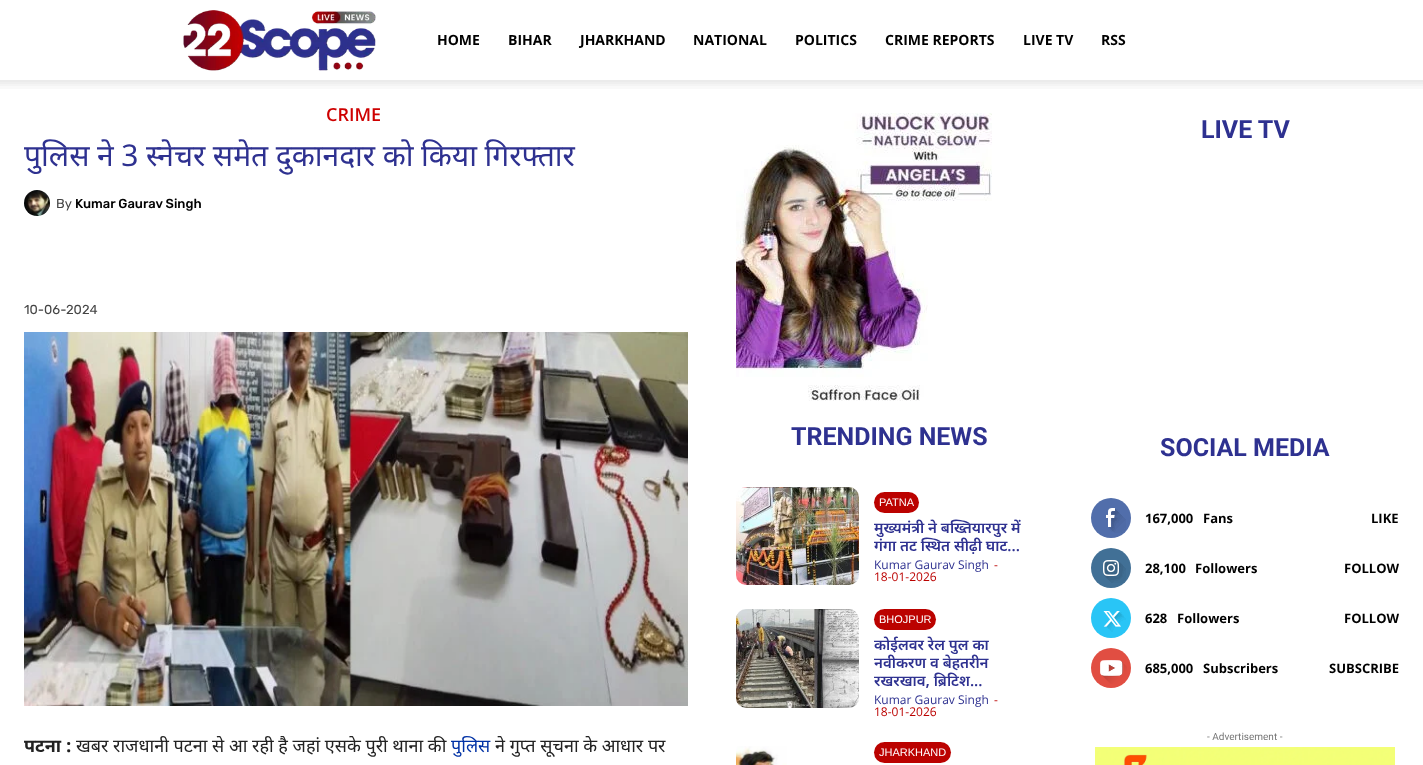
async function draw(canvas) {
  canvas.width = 1423;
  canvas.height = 765;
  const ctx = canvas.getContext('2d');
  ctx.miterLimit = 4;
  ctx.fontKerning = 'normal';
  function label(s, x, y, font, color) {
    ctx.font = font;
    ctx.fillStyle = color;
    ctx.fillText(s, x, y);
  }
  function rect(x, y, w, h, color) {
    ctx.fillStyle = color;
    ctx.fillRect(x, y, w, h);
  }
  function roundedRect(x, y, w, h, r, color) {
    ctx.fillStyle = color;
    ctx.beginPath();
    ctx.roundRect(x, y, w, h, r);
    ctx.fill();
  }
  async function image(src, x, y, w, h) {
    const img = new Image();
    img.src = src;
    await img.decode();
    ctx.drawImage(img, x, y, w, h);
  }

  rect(0, 0, 1423, 765, '#fff');
  await image('assets/img1.png', 183, 10, 193, 61);
  label('HOME', 437, 45, 'bold 14px Open Sans', '#000');
  label('BIHAR', 508, 45, 'bold 14px Open Sans', '#000');
  label('JHARKHAND', 580, 45, 'bold 14px Open Sans', '#000');
  label('NATIONAL', 693, 45, 'bold 14px Open Sans', '#000');
  label('POLITICS', 795, 45, 'bold 14px Open Sans', '#000');
  label('CRIME REPORTS', 885, 45, 'bold 14px Open Sans', '#000');
  label('LIVE TV', 1023, 45, 'bold 14px Open Sans', '#000');
  label('RSS', 1101, 45, 'bold 14px Open Sans', '#000');
  await image('assets/img2.png', 0, 80, 1423, 9);
  label('CRIME', 326, 121, '600 18px Open Sans', '#ce0000');
  ctx.wordSpacing = '-0.25px';
  label('पुलिस ने 3 स्नेचर समेत दुकानदार को किया गिरफ्तार', 24, 166, '30px Noto Sans', '#2e3190');
  await image('assets/img3.png', 24, 190, 26, 26);
  ctx.wordSpacing = '0px';
  label('By', 56, 208, '13px Rubik', '#444');
  label('Kumar Gaurav Singh', 75, 208, '500 13px Rubik', '#000');
  label('10-06-2024', 24, 314, '13px Rubik', '#444');
  await image('assets/img4.png', 24, 332, 664, 374);
  label('पटना :', 24, 752, 'bold 18px Noto Sans Devanagari', '#222');
  label('खबर राजधानी पटना से आ रही है जहां एसके पुरी थाना की', 76, 752, '18px Noto Sans Devanagari', '#222');
  label('पुलिस', 451, 752, '18px Noto Sans Devanagari', '#0031a5');
  label('ने गुप्त सूचना के आधार पर', 495, 752, '18px Noto Sans Devanagari', '#222');
  await image('assets/img5.png', 736, 113, 256, 288);
  label('TRENDING NEWS', 791, 445, 'bold 25px Roboto', '#2e3190');
  await image('assets/img6.png', 736, 487, 123, 98);
  roundedRect(874, 492, 45, 21, 10.5, '#bb0200');
  label('PATNA', 879, 506, '11px Liberation Sans', '#fff');
  label('मुख्यमंत्री ने बख्तियारपुर में', 874, 533, '600 15px Noto Sans Devanagari', '#2e3190');
  label('गंगा तट स्थित सीढ़ी घाट...', 874, 551, '600 15px Noto Sans Devanagari', '#2e3190');
  label('Kumar Gaurav Singh', 874, 569, '12px Open Sans', '#2e3190');
  label('-', 994, 569, '12px Open Sans', '#bb0200');
  label('18-01-2026', 874, 581, '12px Open Sans', '#bb0200');
  await image('assets/img7.png', 736, 609, 123, 99);
  roundedRect(874, 609, 62, 21, 10.5, '#bb0200');
  label('BHOJPUR', 879, 623, '11px Liberation Sans', '#fff');
  label('कोईलवर रेल पुल का', 874, 650, '600 15px Noto Sans Devanagari', '#2e3190');
  label('नवीकरण व बेहतरीन', 874, 668, '600 15px Noto Sans Devanagari', '#2e3190');
  label('रखरखाव, ब्रिटिश...', 874, 686, '600 15px Noto Sans Devanagari', '#2e3190');
  label('Kumar Gaurav Singh', 874, 704, '12px Open Sans', '#2e3190');
  label('-', 994, 704, '12px Open Sans', '#bb0200');
  label('18-01-2026', 874, 716, '12px Open Sans', '#bb0200');
  await image('assets/img8.png', 736, 746, 51, 19);
  roundedRect(874, 742, 77, 21, 10.5, '#bb0200');
  label('JHARKHAND', 879, 756, '11px Liberation Sans', '#fff');
  label('LIVE TV', 1201, 138, 'bold 25px Roboto', '#2e3190');
  label('SOCIAL MEDIA', 1160, 456, 'bold 25px Roboto', '#2e3190');
  ctx.fillStyle = '#516eab';
  ctx.beginPath();
  ctx.arc(1111, 518, 20, 0, 2 * Math.PI);
  ctx.fill();
  await image('assets/img9.png', 1106, 508, 20, 25);
  label('167,000', 1145, 523, 'bold 13px Open Sans', '#000');
  label('Fans', 1203, 523, 'bold 13px Open Sans', '#000');
  label('LIKE', 1371, 523, 'bold 13px Open Sans', '#000');
  ctx.fillStyle = '#417096';
  ctx.beginPath();
  ctx.arc(1111, 568, 20, 0, 2 * Math.PI);
  ctx.fill();
  await image('assets/img10.png', 1103, 560, 23, 23);
  label('28,100', 1145, 573, 'bold 13px Open Sans', '#000');
  label('Followers', 1195, 573, 'bold 13px Open Sans', '#000');
  label('FOLLOW', 1344, 573, 'bold 13px Open Sans', '#000');
  ctx.fillStyle = '#29c5f6';
  ctx.beginPath();
  ctx.arc(1111, 618, 20, 0, 2 * Math.PI);
  ctx.fill();
  await image('assets/img11.png', 1103, 611, 23, 21);
  label('628', 1145, 623, 'bold 13px Open Sans', '#000');
  label('Followers', 1177, 623, 'bold 13px Open Sans', '#000');
  label('FOLLOW', 1344, 623, 'bold 13px Open Sans', '#000');
  ctx.fillStyle = '#e14e42';
  ctx.beginPath();
  ctx.arc(1111, 668, 20, 0, 2 * Math.PI);
  ctx.fill();
  await image('assets/img12.png', 1100, 660, 27, 24);
  label('685,000', 1145, 673, 'bold 13px Open Sans', '#000');
  label('Subscribers', 1203, 673, 'bold 13px Open Sans', '#000');
  label('SUBSCRIBE', 1329, 673, 'bold 13px Open Sans', '#000');
  label('- Advertisement -', 1207, 740, '10px Roboto', '#767676');
  await image('assets/img13.png', 1095, 747, 300, 18);
}

draw(document.querySelector('canvas'));
